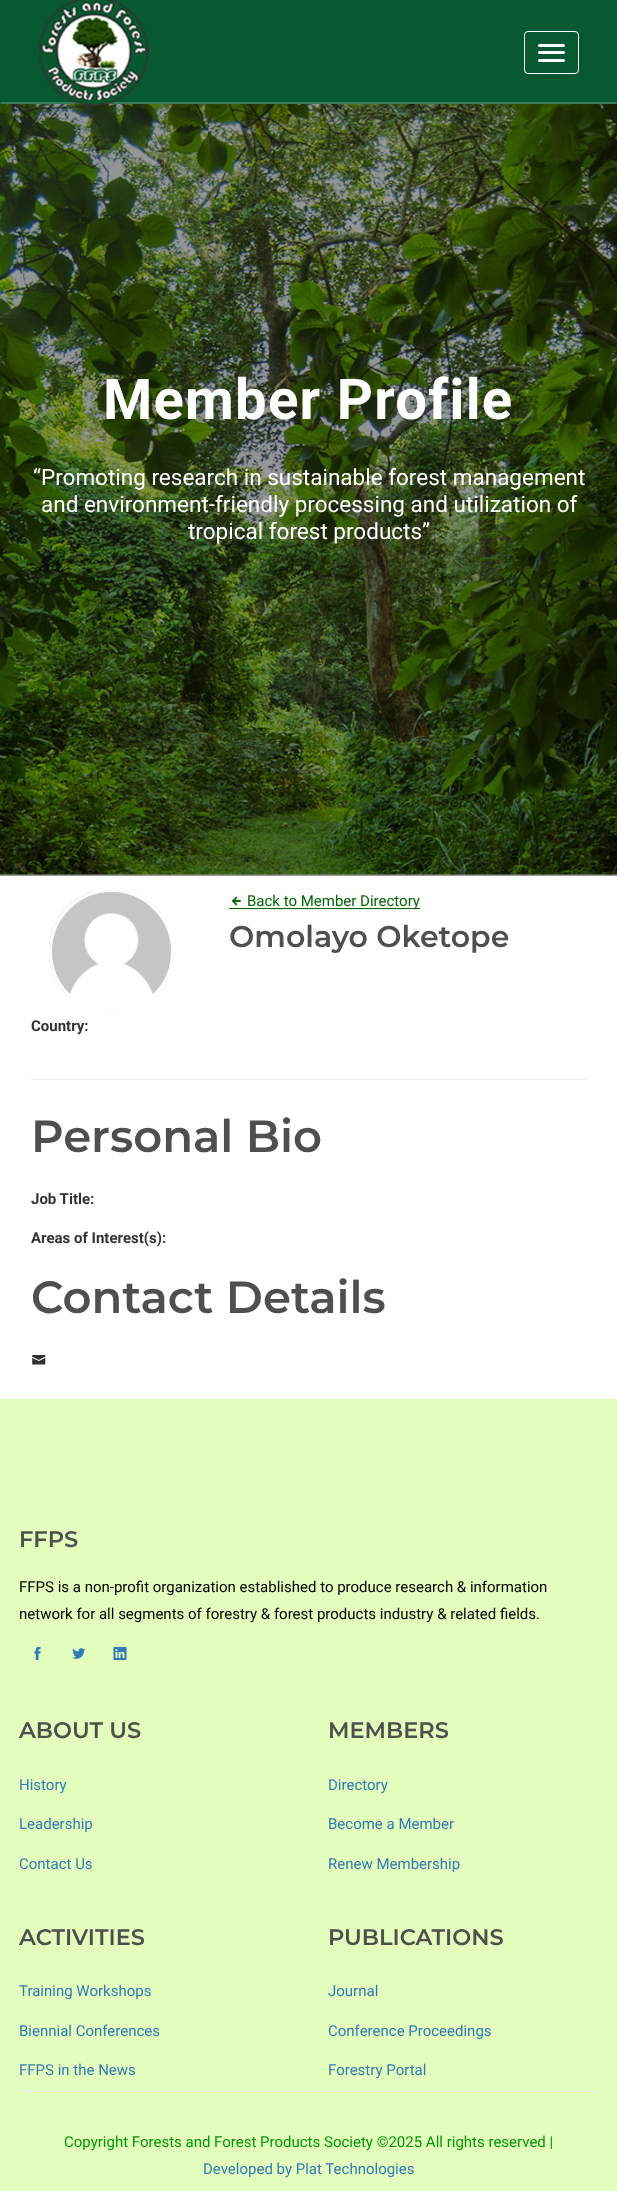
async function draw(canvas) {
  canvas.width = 617;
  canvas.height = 2191;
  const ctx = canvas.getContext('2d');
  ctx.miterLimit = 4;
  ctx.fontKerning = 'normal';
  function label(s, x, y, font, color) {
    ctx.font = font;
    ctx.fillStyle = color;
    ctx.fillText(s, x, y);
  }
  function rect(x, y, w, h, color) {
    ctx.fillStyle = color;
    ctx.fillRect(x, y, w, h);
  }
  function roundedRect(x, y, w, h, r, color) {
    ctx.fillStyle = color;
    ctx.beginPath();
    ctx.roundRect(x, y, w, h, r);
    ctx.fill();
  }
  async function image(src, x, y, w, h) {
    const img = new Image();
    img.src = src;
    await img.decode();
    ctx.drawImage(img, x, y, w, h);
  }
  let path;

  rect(0, 0, 617, 2191, '#fff');
  rect(0, 0, 617, 104, '#065930');
  ctx.fillStyle = '#387a59';
  path = new Path2D('M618 104H0L1 102H616Z');
  ctx.fill(path);
  await image('assets/img2.png', 0, 104, 617, 773);
  await image('assets/img1.png', 39, 0, 110, 106);
  ctx.beginPath();
  ctx.roundRect(524.5, 31.5, 54, 42, 3.5);
  ctx.strokeStyle = '#fff';
  ctx.stroke();
  roundedRect(538, 44, 27, 3, 1.5, '#fff');
  roundedRect(538, 51, 27, 3, 1.5, '#fff');
  roundedRect(538, 59, 27, 3, 1.5, '#fff');
  ctx.letterSpacing = '1.25px';
  label('Member Profile', 103, 419, 'bold 56.25px Roboto', '#fff');
  ctx.letterSpacing = '0px';
  label('“Promoting research in sustainable forest management', 33, 485, '22.5px Roboto', '#fff');
  label('and environment-friendly processing and utilization of', 41, 512, '22.5px Roboto', '#fff');
  label('tropical forest products”', 188, 539, '22.5px Roboto', '#fff');
  await image('assets/img3.png', 48, 891, 126, 123);
  ctx.beginPath();
  ctx.arc(111.5, 951.5, 61, 0, 2 * Math.PI);
  ctx.lineWidth = 3;
  ctx.stroke();
  await image('assets/img4.png', 231, 896, 10, 10);
  rect(229, 908, 191, 1, '#060');
  label('Back to Member Directory', 247, 906, '15px Roboto', '#060');
  label('Omolayo Oketope', 229, 947, '600 30px Montserrat', '#4f4f4f');
  label('Country:', 31, 1031, 'bold 15px Roboto', '#333');
  rect(31, 1079, 555, 1, '#eee');
  label('Personal Bio', 31, 1152, '600 45px Montserrat', '#4f4f4f');
  label('Job Title:', 31, 1204, 'bold 15px Roboto', '#333');
  label('Areas of Interest(s):', 31, 1243, 'bold 15px Roboto', '#333');
  label('Contact Details', 31, 1313, '600 45px Montserrat', '#4f4f4f');
  await image('assets/img5.png', 32, 1355, 14, 10);
  rect(0, 1399, 617, 792, '#e3fdbd');
  label('FFPS', 19, 1547, '600 22.5px Montserrat', '#4f4f4f');
  label('FFPS is a non-profit organization established to produce research & information', 19, 1592, '15px Roboto', '#000');
  label('network for all segments of forestry & forest products industry & related fields.', 19, 1619, '15px Roboto', '#000');
  await image('assets/img6.png', 34, 1646, 7, 15);
  await image('assets/img7.png', 72, 1648, 14, 11);
  await image('assets/img8.png', 113, 1646, 14, 15);
  label('ABOUT US', 19, 1738, '600 22.5px Montserrat', '#4f4f4f');
  label('History', 19, 1790, '15px Roboto', '#337ab7');
  label('Leadership', 19, 1829, '15px Roboto', '#337ab7');
  label('Contact Us', 19, 1869, '15px Roboto', '#337ab7');
  label('MEMBERS', 328, 1738, '600 22.5px Montserrat', '#4f4f4f');
  label('Directory', 328, 1790, '15px Roboto', '#337ab7');
  label('Become a Member', 328, 1829, '15px Roboto', '#337ab7');
  label('Renew Membership', 328, 1869, '15px Roboto', '#337ab7');
  label('ACTIVITIES', 19, 1945, '600 22.5px Montserrat', '#4f4f4f');
  label('Training Workshops', 19, 1996, '15px Roboto', '#337ab7');
  label('Biennial Conferences', 19, 2036, '15px Roboto', '#337ab7');
  label('FFPS in the News', 19, 2075, '15px Roboto', '#337ab7');
  label('PUBLICATIONS', 328, 1945, '600 22.5px Montserrat', '#4f4f4f');
  label('Journal', 328, 1996, '15px Roboto', '#337ab7');
  label('Conference Proceedings', 328, 2036, '15px Roboto', '#337ab7');
  label('Forestry Portal', 328, 2075, '15px Roboto', '#337ab7');
  rect(19, 2091, 580, 1, '#f2f2f2');
  label('Copyright Forests and Forest Products Society ©2025 All rights reserved |', 64, 2147, '15px Roboto', '#090');
  label('Developed by Plat Technologies', 203, 2174, '15px Roboto', '#337ab7');
}

draw(document.querySelector('canvas'));
